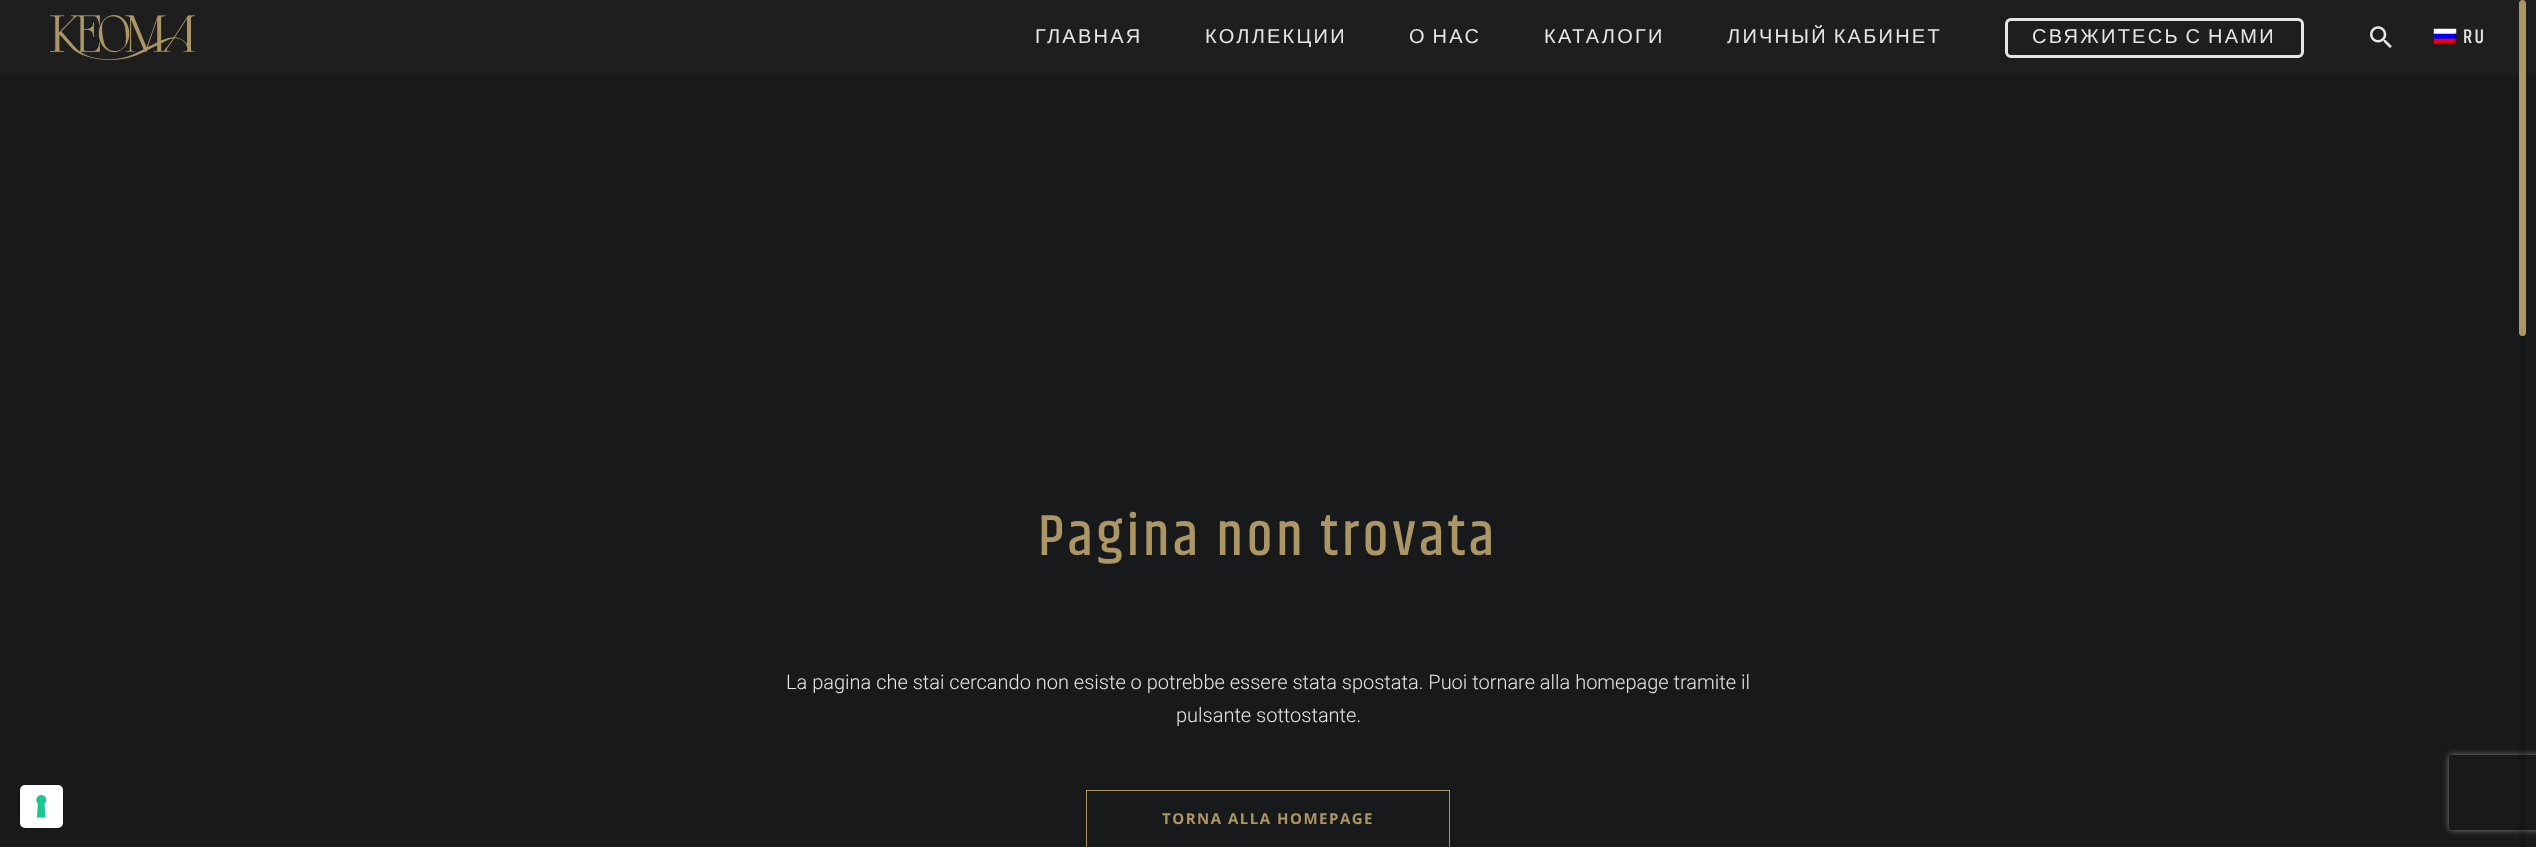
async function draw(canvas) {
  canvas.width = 2536;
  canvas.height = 847;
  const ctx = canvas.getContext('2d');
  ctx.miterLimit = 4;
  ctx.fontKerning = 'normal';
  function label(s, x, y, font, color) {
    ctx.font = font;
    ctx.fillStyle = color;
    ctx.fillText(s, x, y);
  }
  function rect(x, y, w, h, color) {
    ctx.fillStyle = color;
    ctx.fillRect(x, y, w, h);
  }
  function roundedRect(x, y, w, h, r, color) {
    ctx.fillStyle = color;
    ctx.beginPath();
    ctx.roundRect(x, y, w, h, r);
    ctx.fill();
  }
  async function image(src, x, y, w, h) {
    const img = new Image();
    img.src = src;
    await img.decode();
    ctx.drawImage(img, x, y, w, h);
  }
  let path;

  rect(0, 0, 2536, 847, '#18191a');
  rect(0, 0, 2536, 75, '#1e1e1e');
  ctx.save();
  path = new Path2D('M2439 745H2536V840H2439ZM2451.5 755H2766.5C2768 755 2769 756 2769 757.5V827.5C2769 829 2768 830 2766.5 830H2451.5C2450 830 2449 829 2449 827.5V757.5C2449 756 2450 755 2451.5 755Z');
  ctx.clip(path, 'evenodd');
  ctx.fillStyle = '#808080';
  ctx.filter = 'blur(3px)';
  ctx.beginPath();
  ctx.roundRect(2449, 755, 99, 75, 2.5);
  ctx.fill();
  ctx.filter = 'none';
  ctx.restore();
  rect(2519, 0, 7, 847, '#0000001a');
  await image('assets/img1.png', 50, 15, 145, 45);
  ctx.letterSpacing = '2.25px';
  label('ГЛАВНАЯ', 1035, 43, '20px Liberation Sans', '#e6e6e6');
  label('КОЛЛЕКЦИИ', 1205, 43, '20px Liberation Sans', '#e6e6e6');
  ctx.wordSpacing = '-2px';
  label('О НАС', 1409, 43, '20px Liberation Sans', '#e6e6e6');
  ctx.wordSpacing = '0px';
  label('КАТАЛОГИ', 1544, 43, '20px Liberation Sans', '#e6e6e6');
  ctx.wordSpacing = '-2px';
  label('ЛИЧНЫЙ КАБИНЕТ', 1727, 43, '20px Liberation Sans', '#e6e6e6');
  ctx.beginPath();
  ctx.roundRect(2006.5, 19.5, 296, 37, 4.5);
  ctx.strokeStyle = '#e6e6e6';
  ctx.lineWidth = 3;
  ctx.stroke();
  label('СВЯЖИТЕСЬ С НАМИ', 2032, 43, '20px Liberation Sans', '#e6e6e6');
  await image('assets/img2.png', 2370, 26, 22, 22);
  await image('assets/img3.png', 2433, 28, 24, 16);
  ctx.wordSpacing = '0px';
  label('RU', 2463, 43, '500 20px Khand', '#e6e6e6');
  ctx.letterSpacing = '3.5px';
  label('Pagina non trovata', 1038, 555, '500 58.75px Khand', '#ac9665');
  ctx.letterSpacing = '0px';
  label('La pagina che stai cercando non esiste o potrebbe essere stata spostata. Puoi tornare alla homepage tramite il', 786, 689, '300 20px Roboto', '#e6e6e6');
  label('pulsante sottostante.', 1176, 722, '300 20px Roboto', '#e6e6e6');
  ctx.strokeStyle = '#ac9665';
  ctx.lineWidth = 1;
  ctx.strokeRect(1086.5, 790.5, 363, 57);
  ctx.letterSpacing = '1.5px';
  label('TORNA ALLA HOMEPAGE', 1162, 824, 'bold 15px Open Sans', '#ac9665');
  roundedRect(2519, 0, 7, 336, 3.5, '#ac9665');
  ctx.beginPath();
  ctx.roundRect(19.5, 784.5, 44, 44, 5.5);
  ctx.strokeStyle = '#141516';
  ctx.stroke();
  roundedRect(20, 785, 43, 43, 5, '#fff');
  await image('assets/img4.png', 36, 795, 11, 23);
}

draw(document.querySelector('canvas'));
